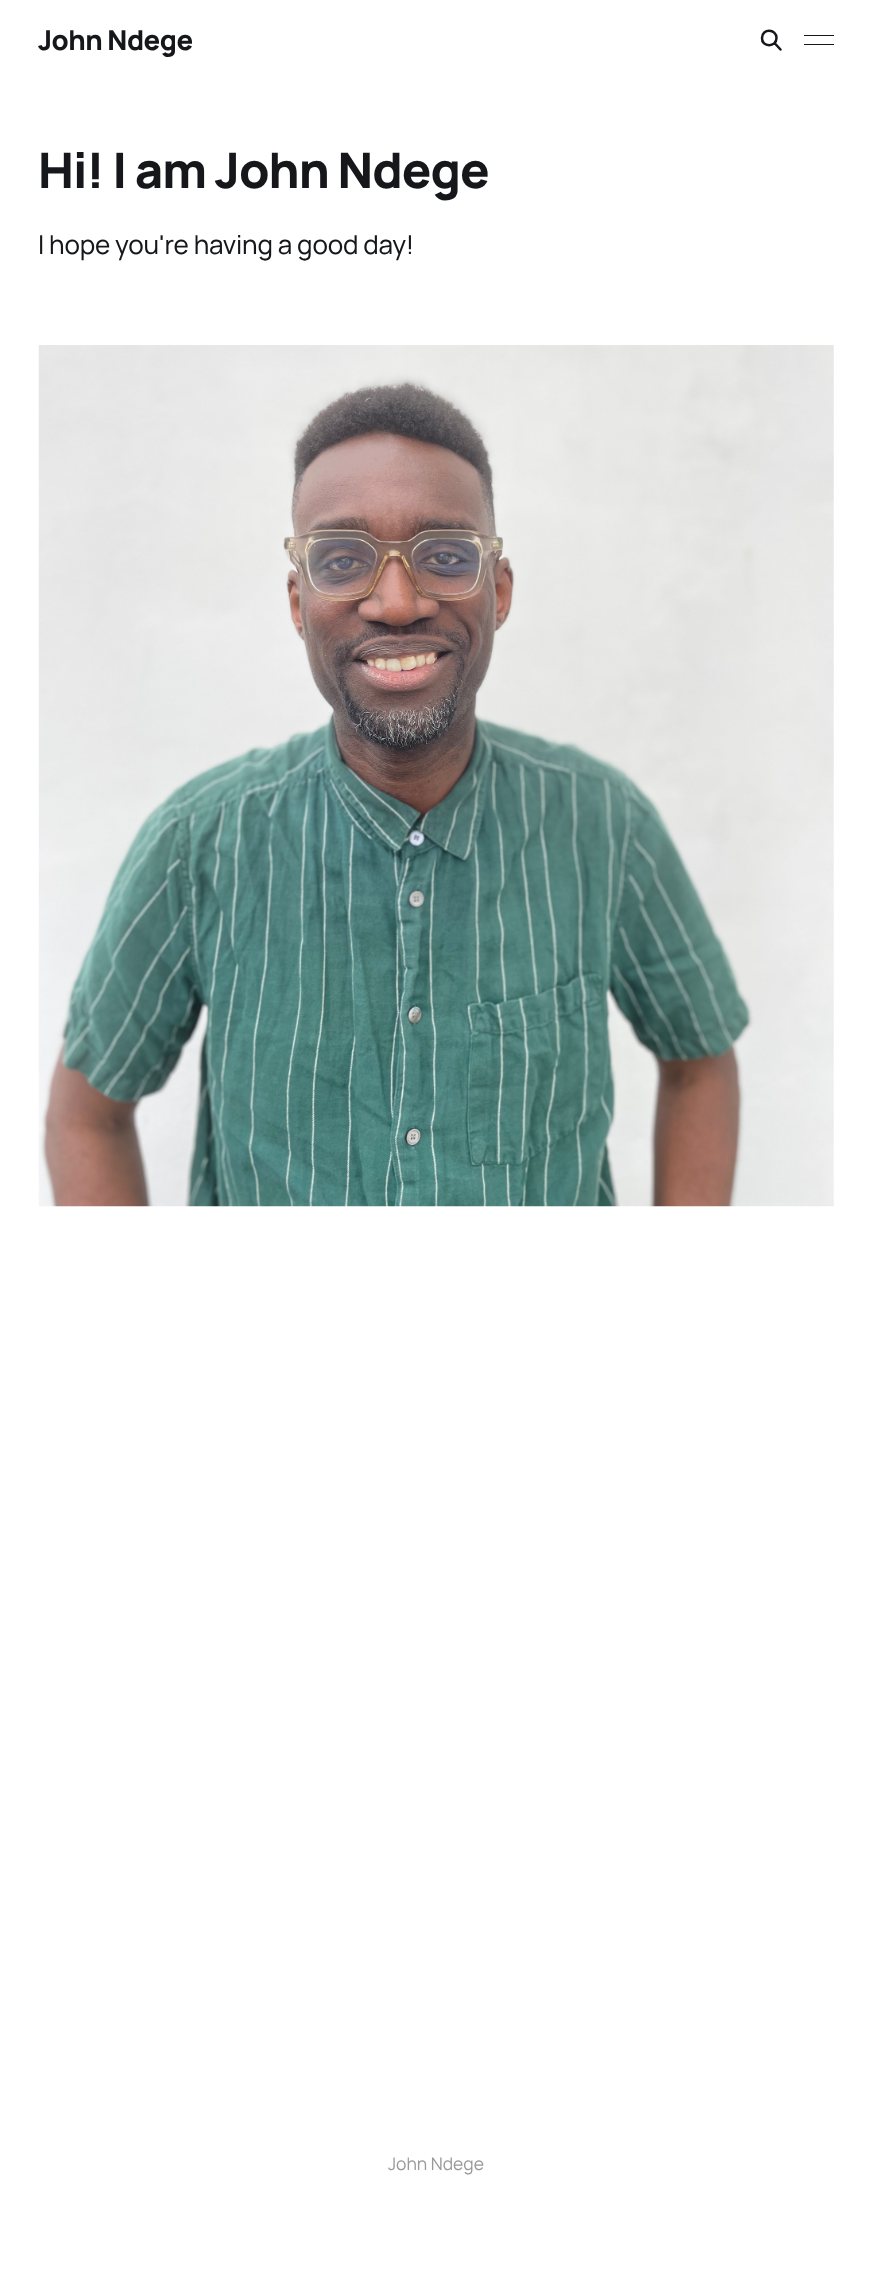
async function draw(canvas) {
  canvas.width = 872;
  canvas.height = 2295;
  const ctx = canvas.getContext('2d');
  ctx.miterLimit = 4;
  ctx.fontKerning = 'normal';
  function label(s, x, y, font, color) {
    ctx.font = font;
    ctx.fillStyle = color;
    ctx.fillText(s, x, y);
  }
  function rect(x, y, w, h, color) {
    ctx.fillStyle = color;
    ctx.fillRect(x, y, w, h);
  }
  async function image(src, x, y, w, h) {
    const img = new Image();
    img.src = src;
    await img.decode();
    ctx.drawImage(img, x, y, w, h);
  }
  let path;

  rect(0, 0, 872, 2295, '#fff');
  ctx.letterSpacing = '-0.5px';
  label('John Ndege', 38, 50, '800 27.5px Manrope', '#15171a');
  path = new Path2D('M780.5 49.5L774.5 43ZM776.5 38C776.5 47.5 761.5 47.5 762 38C762 28 776.5 28.5 776.5 38Z');
  ctx.strokeStyle = '#15171a';
  ctx.lineWidth = 2.5;
  ctx.lineCap = 'round';
  ctx.lineJoin = 'round';
  ctx.stroke(path);
  rect(804, 35, 30, 1, '#15171a');
  rect(804, 44, 30, 1, '#15171a');
  ctx.letterSpacing = '-1px';
  label('Hi! I am John Ndege', 38, 188, '800 48.9px Manrope', '#15171a');
  ctx.letterSpacing = '-0.2px';
  label('I hope you\'re having a good day!', 38, 254, '26px "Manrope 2"', '#15171a');
  await image('assets/img1.png', 38, 345, 796, 862);
  ctx.letterSpacing = '0px';
  label('John Ndege', 388, 2170, '17.5px Manrope', '#999');
}

draw(document.querySelector('canvas'));
